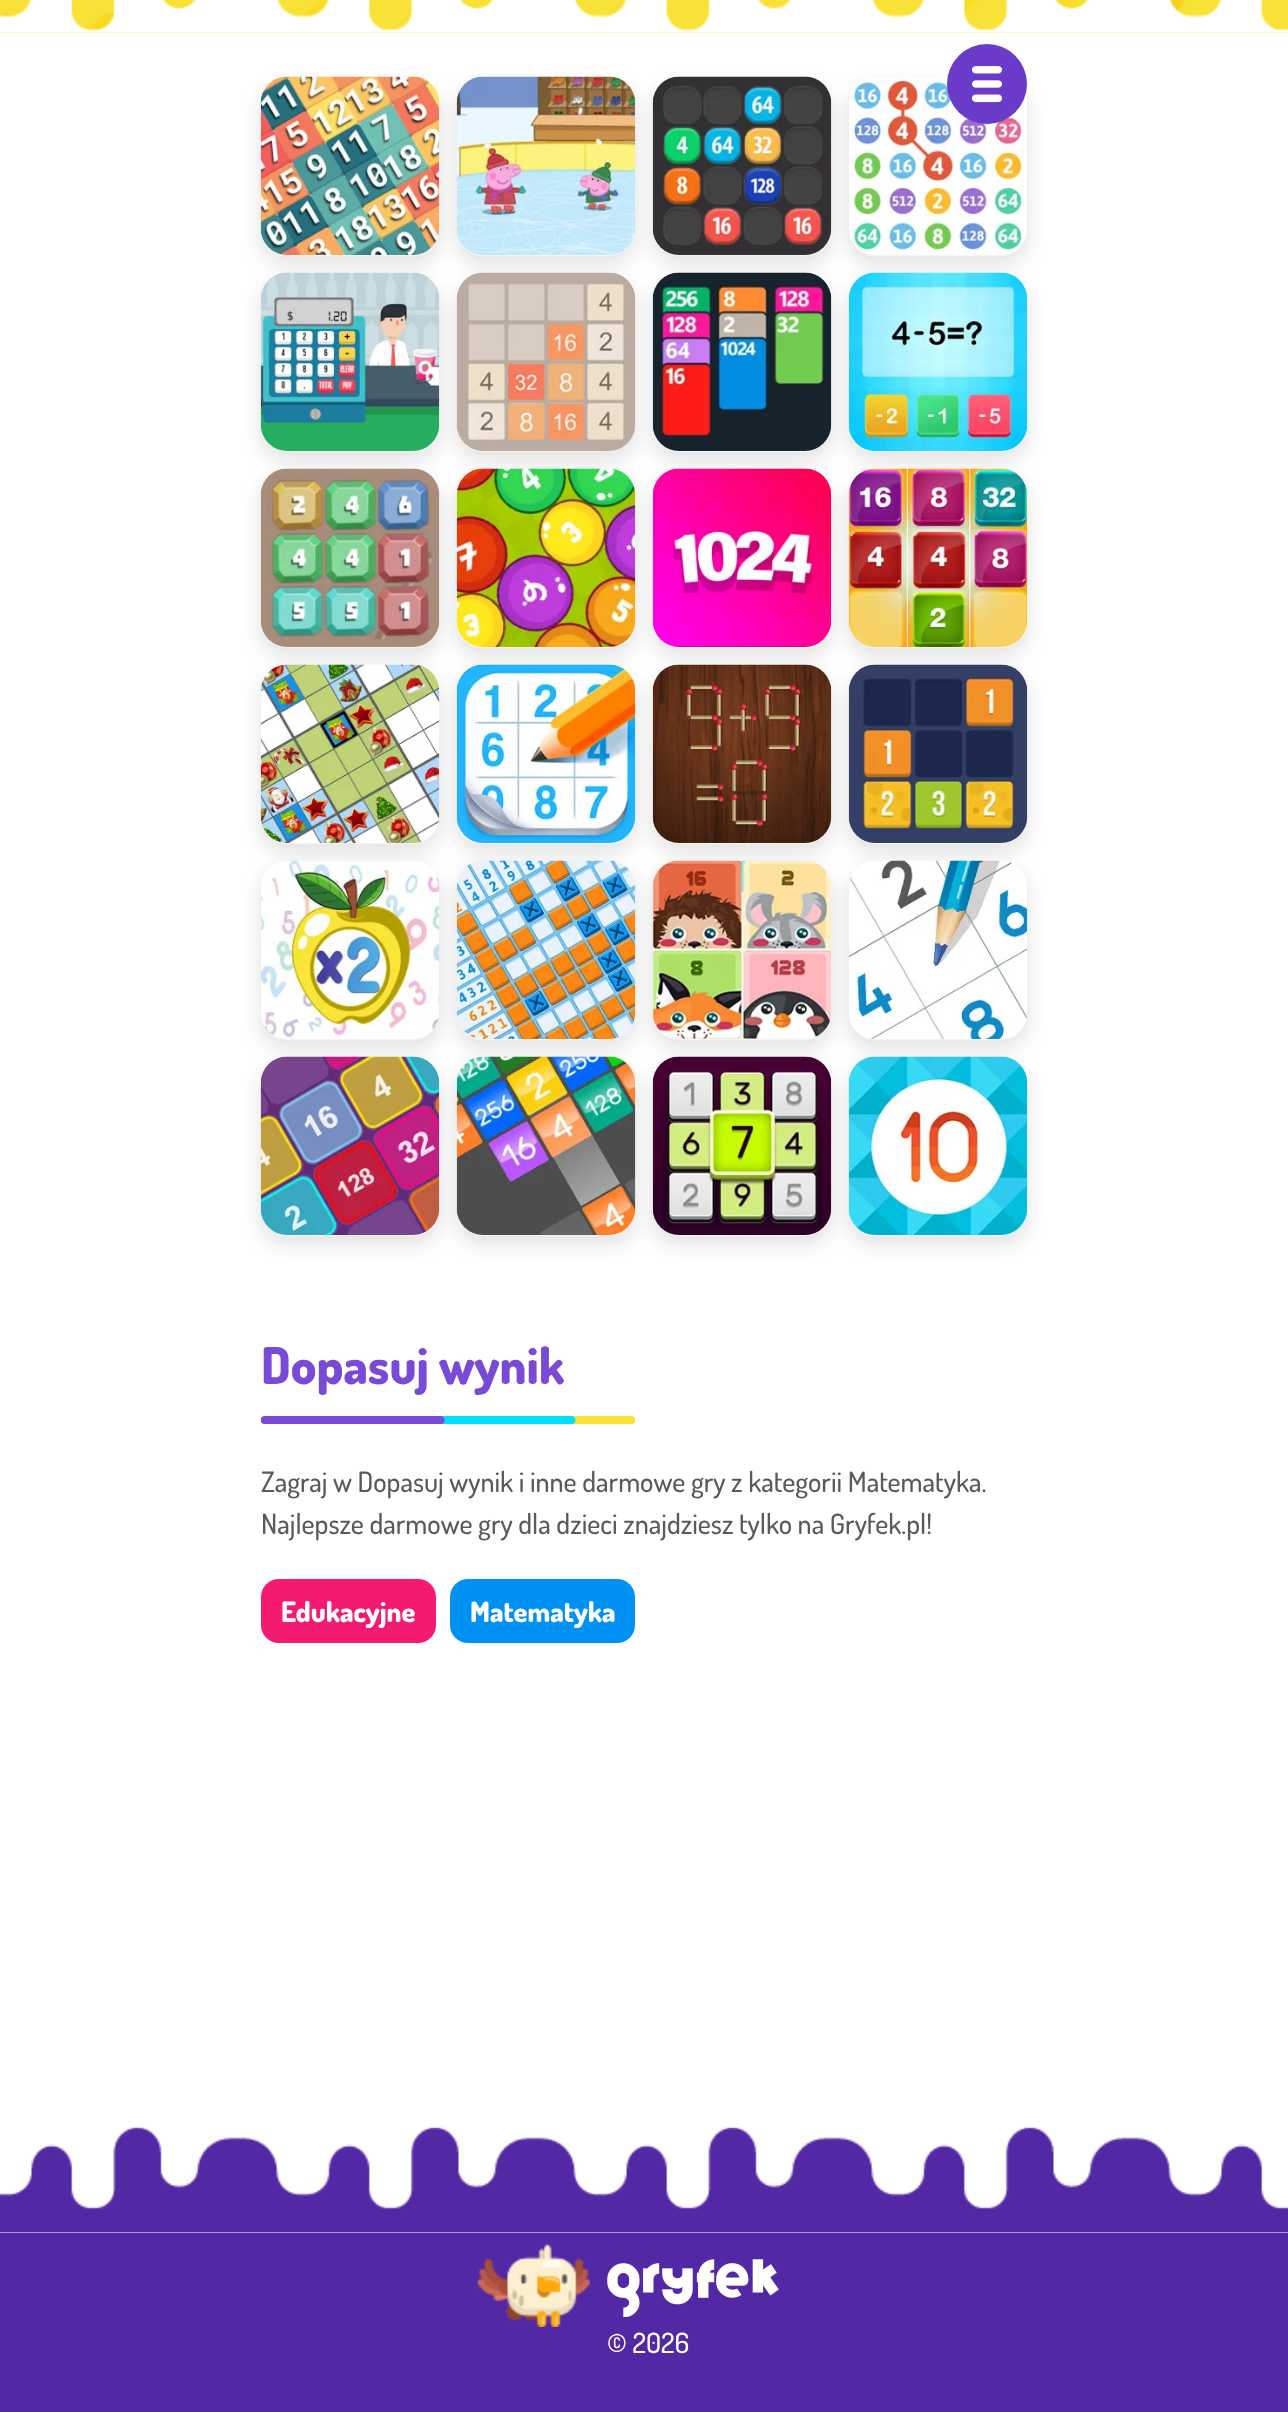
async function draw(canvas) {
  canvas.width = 1288;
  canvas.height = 2412;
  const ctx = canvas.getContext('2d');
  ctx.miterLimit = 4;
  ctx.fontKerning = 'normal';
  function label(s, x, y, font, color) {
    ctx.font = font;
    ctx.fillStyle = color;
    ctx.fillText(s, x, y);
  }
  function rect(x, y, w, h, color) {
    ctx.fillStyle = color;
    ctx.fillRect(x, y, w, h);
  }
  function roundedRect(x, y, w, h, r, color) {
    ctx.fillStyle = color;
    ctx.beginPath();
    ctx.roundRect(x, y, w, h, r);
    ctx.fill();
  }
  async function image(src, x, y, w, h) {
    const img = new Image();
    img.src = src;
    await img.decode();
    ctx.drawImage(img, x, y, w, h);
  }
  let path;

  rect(0, 0, 1288, 2412, '#fff');
  rect(0, 0, 1288, 33, '#f9e237');
  await image('assets/img1.png', 0, 0, 1258, 33);
  await image('assets/img2.png', 0, 0, 1288, 33);
  ctx.fillStyle = '#0000001a';
  ctx.filter = 'blur(9px)';
  ctx.beginPath();
  ctx.roundRect(847, 84, 182, 182, 28);
  ctx.fill();
  ctx.filter = 'none';
  ctx.filter = 'blur(9px)';
  ctx.beginPath();
  ctx.roundRect(651, 84, 182, 182, 28);
  ctx.fill();
  ctx.filter = 'none';
  ctx.filter = 'blur(9px)';
  ctx.beginPath();
  ctx.roundRect(651, 280, 182, 182, 28);
  ctx.fill();
  ctx.filter = 'none';
  ctx.filter = 'blur(9px)';
  ctx.beginPath();
  ctx.roundRect(847, 280, 182, 182, 28);
  ctx.fill();
  ctx.filter = 'none';
  roundedRect(849, 77, 178, 179, 26, '#f5f5f5');
  await image('assets/img7.png', 849, 77, 178, 178);
  ctx.fillStyle = '#6a3ac9';
  ctx.beginPath();
  ctx.arc(987, 84, 40, 0, 2 * Math.PI);
  ctx.fill();
  await image('assets/img3.png', 972, 66, 30, 37);
  ctx.fillStyle = '#0000001a';
  ctx.filter = 'blur(9px)';
  ctx.beginPath();
  ctx.roundRect(259, 84, 182, 182, 28);
  ctx.fill();
  ctx.filter = 'none';
  ctx.filter = 'blur(9px)';
  ctx.beginPath();
  ctx.roundRect(455, 84, 182, 182, 28);
  ctx.fill();
  ctx.filter = 'none';
  ctx.filter = 'blur(9px)';
  ctx.beginPath();
  ctx.roundRect(259, 280, 182, 182, 28);
  ctx.fill();
  ctx.filter = 'none';
  ctx.filter = 'blur(9px)';
  ctx.beginPath();
  ctx.roundRect(455, 280, 182, 182, 28);
  ctx.fill();
  ctx.filter = 'none';
  roundedRect(261, 77, 178, 179, 26, '#f5f5f5');
  await image('assets/img4.png', 260, 76, 180, 179);
  roundedRect(457, 77, 178, 179, 26, '#f5f5f5');
  await image('assets/img5.png', 456, 76, 180, 179);
  roundedRect(653, 77, 178, 179, 26, '#f5f5f5');
  await image('assets/img6.png', 652, 76, 180, 179);
  ctx.fillStyle = '#0000001a';
  ctx.filter = 'blur(9px)';
  ctx.beginPath();
  ctx.roundRect(259, 476, 182, 182, 28);
  ctx.fill();
  ctx.filter = 'none';
  ctx.filter = 'blur(9px)';
  ctx.beginPath();
  ctx.roundRect(455, 476, 182, 182, 28);
  ctx.fill();
  ctx.filter = 'none';
  roundedRect(261, 273, 178, 179, 26, '#f5f5f5');
  await image('assets/img8.png', 260, 272, 180, 179);
  ctx.fillStyle = '#0000001a';
  ctx.filter = 'blur(9px)';
  ctx.beginPath();
  ctx.roundRect(651, 476, 182, 182, 28);
  ctx.fill();
  ctx.filter = 'none';
  roundedRect(457, 273, 178, 179, 26, '#f5f5f5');
  await image('assets/img9.png', 456, 272, 180, 179);
  ctx.fillStyle = '#0000001a';
  ctx.filter = 'blur(9px)';
  ctx.beginPath();
  ctx.roundRect(847, 476, 182, 182, 28);
  ctx.fill();
  ctx.filter = 'none';
  roundedRect(653, 273, 178, 179, 26, '#f5f5f5');
  await image('assets/img10.png', 652, 272, 180, 179);
  roundedRect(849, 273, 178, 179, 26, '#f5f5f5');
  await image('assets/img11.png', 848, 272, 180, 179);
  ctx.fillStyle = '#0000001a';
  ctx.filter = 'blur(9px)';
  ctx.beginPath();
  ctx.roundRect(259, 672, 182, 182, 28);
  ctx.fill();
  ctx.filter = 'none';
  ctx.filter = 'blur(9px)';
  ctx.beginPath();
  ctx.roundRect(455, 672, 182, 182, 28);
  ctx.fill();
  ctx.filter = 'none';
  roundedRect(261, 469, 178, 179, 26, '#f5f5f5');
  await image('assets/img12.png', 260, 468, 180, 179);
  ctx.fillStyle = '#0000001a';
  ctx.filter = 'blur(9px)';
  ctx.beginPath();
  ctx.roundRect(651, 672, 182, 182, 28);
  ctx.fill();
  ctx.filter = 'none';
  roundedRect(457, 469, 178, 179, 26, '#f5f5f5');
  await image('assets/img13.png', 456, 468, 180, 179);
  ctx.fillStyle = '#0000001a';
  ctx.filter = 'blur(9px)';
  ctx.beginPath();
  ctx.roundRect(847, 672, 182, 182, 28);
  ctx.fill();
  ctx.filter = 'none';
  roundedRect(653, 469, 178, 179, 26, '#f5f5f5');
  await image('assets/img14.png', 652, 468, 180, 179);
  roundedRect(849, 469, 178, 179, 26, '#f5f5f5');
  await image('assets/img15.png', 848, 468, 180, 179);
  ctx.fillStyle = '#0000001a';
  ctx.filter = 'blur(9px)';
  ctx.beginPath();
  ctx.roundRect(259, 868, 182, 182, 28);
  ctx.fill();
  ctx.filter = 'none';
  ctx.filter = 'blur(9px)';
  ctx.beginPath();
  ctx.roundRect(455, 868, 182, 182, 28);
  ctx.fill();
  ctx.filter = 'none';
  roundedRect(261, 665, 178, 179, 26, '#f5f5f5');
  await image('assets/img16.png', 260, 664, 180, 179);
  ctx.fillStyle = '#0000001a';
  ctx.filter = 'blur(9px)';
  ctx.beginPath();
  ctx.roundRect(651, 868, 182, 182, 28);
  ctx.fill();
  ctx.filter = 'none';
  roundedRect(457, 665, 178, 179, 26, '#f5f5f5');
  await image('assets/img17.png', 456, 664, 180, 179);
  ctx.fillStyle = '#0000001a';
  ctx.filter = 'blur(9px)';
  ctx.beginPath();
  ctx.roundRect(847, 868, 182, 182, 28);
  ctx.fill();
  ctx.filter = 'none';
  roundedRect(653, 665, 178, 179, 26, '#f5f5f5');
  await image('assets/img18.png', 652, 664, 180, 179);
  roundedRect(849, 665, 178, 179, 26, '#f5f5f5');
  await image('assets/img19.png', 848, 664, 180, 179);
  ctx.fillStyle = '#0000001a';
  ctx.filter = 'blur(9px)';
  ctx.beginPath();
  ctx.roundRect(259, 1064, 182, 182, 28);
  ctx.fill();
  ctx.filter = 'none';
  ctx.filter = 'blur(9px)';
  ctx.beginPath();
  ctx.roundRect(455, 1064, 182, 182, 28);
  ctx.fill();
  ctx.filter = 'none';
  roundedRect(261, 861, 178, 179, 26, '#f5f5f5');
  await image('assets/img20.png', 261, 860, 179, 179);
  ctx.fillStyle = '#0000001a';
  ctx.filter = 'blur(9px)';
  ctx.beginPath();
  ctx.roundRect(651, 1064, 182, 182, 28);
  ctx.fill();
  ctx.filter = 'none';
  roundedRect(457, 861, 178, 179, 26, '#f5f5f5');
  await image('assets/img21.png', 456, 860, 180, 179);
  ctx.fillStyle = '#0000001a';
  ctx.filter = 'blur(9px)';
  ctx.beginPath();
  ctx.roundRect(847, 1064, 182, 182, 28);
  ctx.fill();
  ctx.filter = 'none';
  roundedRect(653, 861, 178, 179, 26, '#f5f5f5');
  await image('assets/img22.png', 652, 860, 179, 179);
  roundedRect(849, 861, 178, 179, 26, '#f5f5f5');
  await image('assets/img23.png', 848, 860, 180, 179);
  roundedRect(261, 1057, 178, 179, 26, '#f5f5f5');
  await image('assets/img24.png', 260, 1056, 180, 179);
  roundedRect(457, 1057, 178, 179, 26, '#f5f5f5');
  await image('assets/img25.png', 456, 1056, 180, 179);
  roundedRect(653, 1057, 178, 179, 26, '#f5f5f5');
  await image('assets/img26.png', 652, 1056, 180, 179);
  roundedRect(849, 1057, 178, 179, 26, '#f5f5f5');
  await image('assets/img27.png', 848, 1056, 180, 179);
  label('Dopasuj wynik', 261, 1384, '200 50.5px Dosis', '#794ad5');
  ctx.save();
  ctx.beginPath();
  ctx.rect(261, 1416, 374, 8);
  ctx.clip();
  ctx.fillStyle = '#f9e237';
  path = new Path2D('M456 1416H631C636 1416 637 1422 633 1424H456C450 1424 450 1416 456 1416Z');
  ctx.fill(path);
  ctx.restore();
  ctx.fillStyle = '#00deff';
  path = new Path2D('M396 1416H571C576 1416 577 1422 573 1424H396C391 1424 391 1416 396 1416Z');
  ctx.fill(path);
  ctx.save();
  ctx.beginPath();
  ctx.rect(261, 1416, 374, 8);
  ctx.clip();
  ctx.fillStyle = '#794ad5';
  path = new Path2D('M265 1416H440C445 1416 446 1422 442 1424H265C259 1424 259 1416 265 1416Z');
  ctx.fill(path);
  ctx.restore();
  label('Zagraj w Dopasuj wynik i inne darmowe gry z kategorii Matematyka.', 261, 1492, '200 28px "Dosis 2"', '#5a5a5a');
  label('Najlepsze darmowe gry dla dzieci znajdziesz tylko na Gryfek.pl!', 261, 1534, '200 28px "Dosis 2"', '#5a5a5a');
  roundedRect(261, 1579, 175, 64, 18, '#f41a71');
  label('Edukacyjne', 281, 1622, '200 28px Dosis', '#fff');
  roundedRect(450, 1579, 185, 64, 18, '#0091f4');
  label('Matematyka', 470, 1622, '200 28px Dosis', '#fff');
  rect(0, 2233, 1288, 179, '#5328a5');
  await image('assets/img28.png', 0, 2127, 1288, 106);
  await image('assets/img29.png', 477, 2244, 113, 83);
  await image('assets/img30.png', 607, 2259, 172, 58);
  label('© 2026', 607, 2353, '200 28px "Dosis 2"', '#fff');
}

draw(document.querySelector('canvas'));
